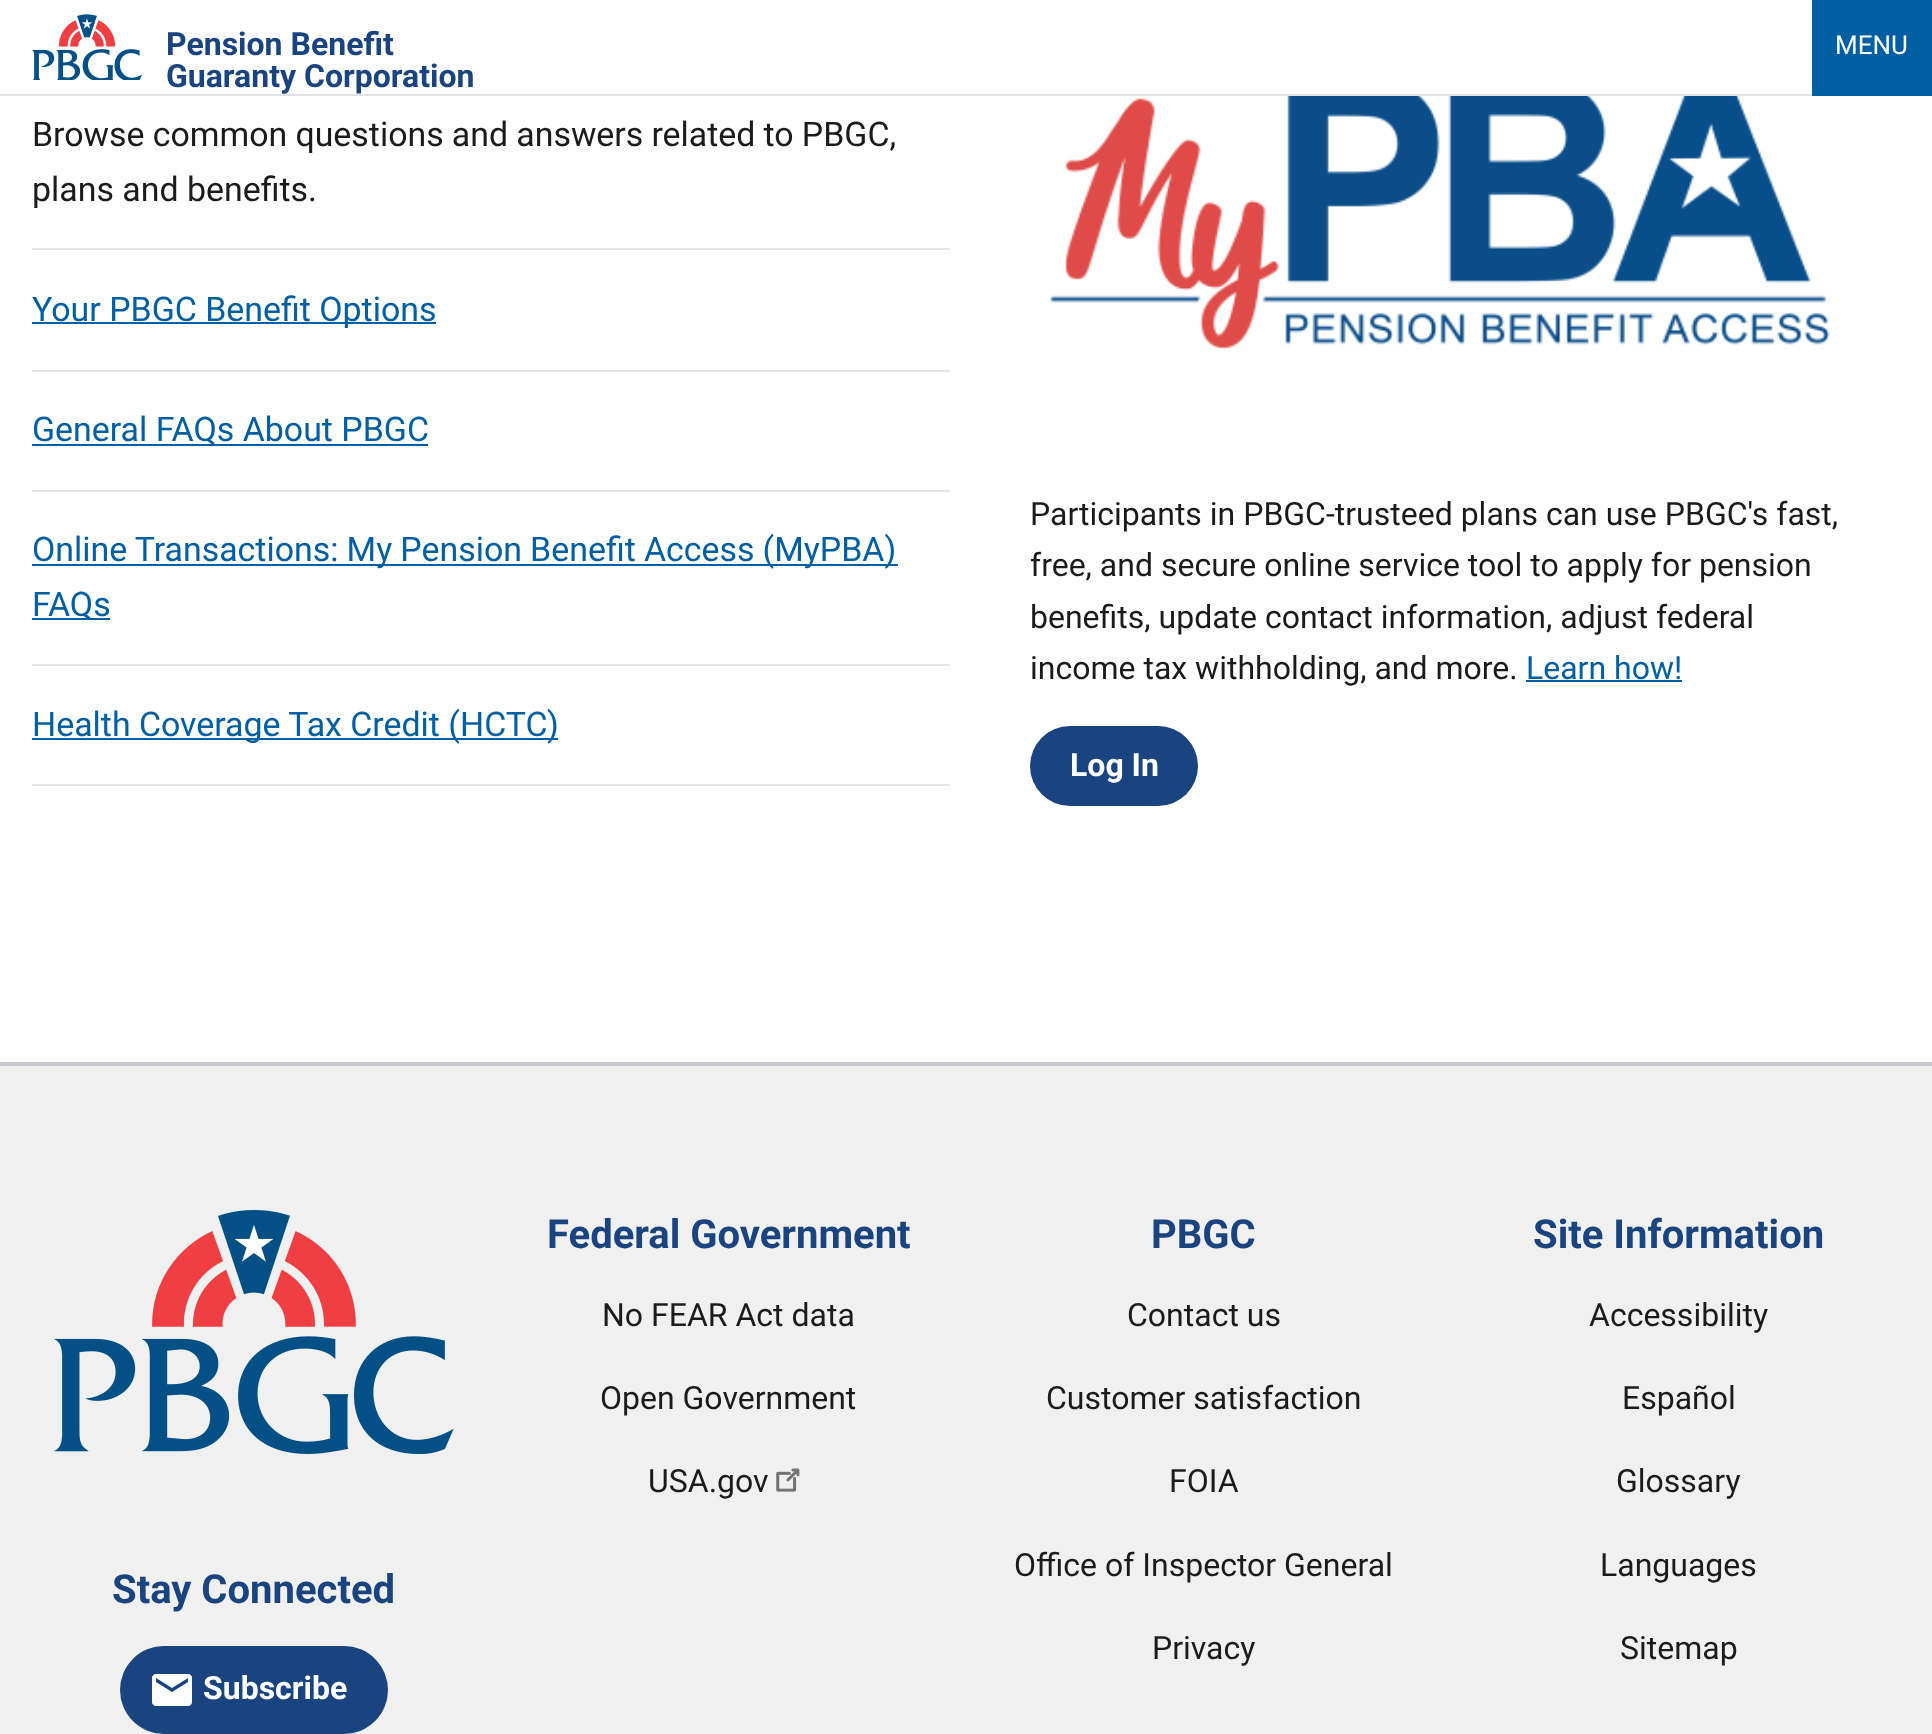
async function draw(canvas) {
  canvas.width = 1932;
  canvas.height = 1734;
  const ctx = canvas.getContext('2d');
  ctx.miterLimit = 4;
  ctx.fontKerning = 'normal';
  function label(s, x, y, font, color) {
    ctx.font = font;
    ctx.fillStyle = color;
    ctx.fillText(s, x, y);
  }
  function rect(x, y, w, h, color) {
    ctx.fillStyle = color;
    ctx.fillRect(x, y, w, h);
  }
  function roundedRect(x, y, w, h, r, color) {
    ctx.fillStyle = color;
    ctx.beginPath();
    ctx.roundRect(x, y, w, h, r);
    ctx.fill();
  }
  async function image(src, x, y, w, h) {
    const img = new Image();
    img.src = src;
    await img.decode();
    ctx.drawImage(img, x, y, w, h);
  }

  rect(0, 0, 1932, 1734, '#fff');
  rect(0, 94, 1812, 2, '#dfe1e2');
  await image('assets/img1.png', 32, 14, 110, 66);
  label('Pension Benefit', 166, 55, 'bold 32px Roboto', '#1a4480');
  label('Guaranty Corporation', 166, 87, 'bold 32px Roboto', '#1a4480');
  rect(1812, 0, 120, 96, '#005ea2');
  label('MENU', 1835, 54, '26px Roboto', '#fff');
  rect(32, 248, 918, 2, '#e6e6e6');
  ctx.wordSpacing = '-0.25px';
  label('Browse common questions and answers related to PBGC,', 32, 146, '33.9px Roboto', '#1b1b1b');
  ctx.wordSpacing = '0px';
  label('plans and benefits.', 32, 201, '33.9px Roboto', '#1b1b1b');
  rect(32, 370, 918, 2, '#e6e6e6');
  rect(32, 322, 404, 2, '#005ea2');
  label('Your PBGC Benefit Options', 32, 321, '33.9px Roboto', '#005ea2');
  rect(32, 490, 918, 2, '#e6e6e6');
  rect(32, 444, 396, 2, '#005ea2');
  label('General FAQs About PBGC', 32, 441, '33.9px Roboto', '#005ea2');
  rect(32, 664, 918, 2, '#e6e6e6');
  rect(32, 564, 866, 2, '#005ea2');
  ctx.wordSpacing = '-0.25px';
  label('Online Transactions: My Pension Benefit Access (MyPBA)', 32, 561, '33.9px Roboto', '#005ea2');
  rect(32, 618, 78, 2, '#005ea2');
  ctx.wordSpacing = '0px';
  label('FAQs', 32, 616, '33.9px Roboto', '#005ea2');
  rect(32, 784, 918, 2, '#e6e6e6');
  rect(32, 738, 526, 2, '#005ea2');
  label('Health Coverage Tax Credit (HCTC)', 32, 736, '33.9px Roboto', '#005ea2');
  await image('assets/img2.png', 982, 96, 918, 378);
  label('Participants in PBGC-trusteed plans can use PBGC\'s fast,', 1030, 525, '32px Roboto', '#1b1b1b');
  label('free, and secure online service tool to apply for pension', 1030, 576, '32px Roboto', '#1b1b1b');
  label('benefits, update contact information, adjust federal', 1030, 628, '32px Roboto', '#1b1b1b');
  label('income tax withholding, and more.', 1030, 679, '32px Roboto', '#1b1b1b');
  label('Learn how!', 1526, 679, '32px Roboto', '#005ea2');
  rect(1526, 680, 156, 2, '#005ea2');
  roundedRect(1030, 726, 168, 80, 40, '#1a4480');
  label('Log In', 1070, 776, 'bold 32px Roboto', '#fff');
  rect(0, 1066, 1932, 668, '#f0f0f0');
  rect(0, 1062, 1932, 4, '#c6cace');
  await image('assets/img3.png', 54, 1210, 400, 244);
  label('Stay Connected', 112, 1603, 'bold 40px Roboto', '#1a4480');
  roundedRect(120, 1646, 268, 88, 44, '#1a4480');
  await image('assets/img4.png', 152, 1674, 40, 32);
  label('Subscribe', 203, 1699, 'bold 32px Roboto', '#fff');
  label('Federal Government', 547, 1248, 'bold 40px Roboto', '#1a4480');
  label('No FEAR Act data', 602, 1326, '32px Roboto', '#1b1b1b');
  label('Open Government', 600, 1409, '32px Roboto', '#1b1b1b');
  label('USA.gov', 648, 1492, '32px Roboto', '#1b1b1b');
  await image('assets/img5.png', 776, 1468, 24, 24);
  label('PBGC', 1151, 1248, 'bold 40px Roboto', '#1a4480');
  label('Contact us', 1127, 1326, '32px Roboto', '#1b1b1b');
  label('Customer satisfaction', 1046, 1409, '32px Roboto', '#1b1b1b');
  label('FOIA', 1169, 1492, '32px Roboto', '#1b1b1b');
  label('Office of Inspector General', 1014, 1576, '32px Roboto', '#1b1b1b');
  label('Privacy', 1152, 1659, '32px Roboto', '#1b1b1b');
  label('Site Information', 1533, 1248, 'bold 40px Roboto', '#1a4480');
  label('Accessibility', 1589, 1326, '32px Roboto', '#1b1b1b');
  label('Español', 1622, 1409, '32px Roboto', '#1b1b1b');
  label('Glossary', 1616, 1492, '32px Roboto', '#1b1b1b');
  label('Languages', 1600, 1576, '32px Roboto', '#1b1b1b');
  label('Sitemap', 1620, 1659, '32px Roboto', '#1b1b1b');
}

draw(document.querySelector('canvas'));
